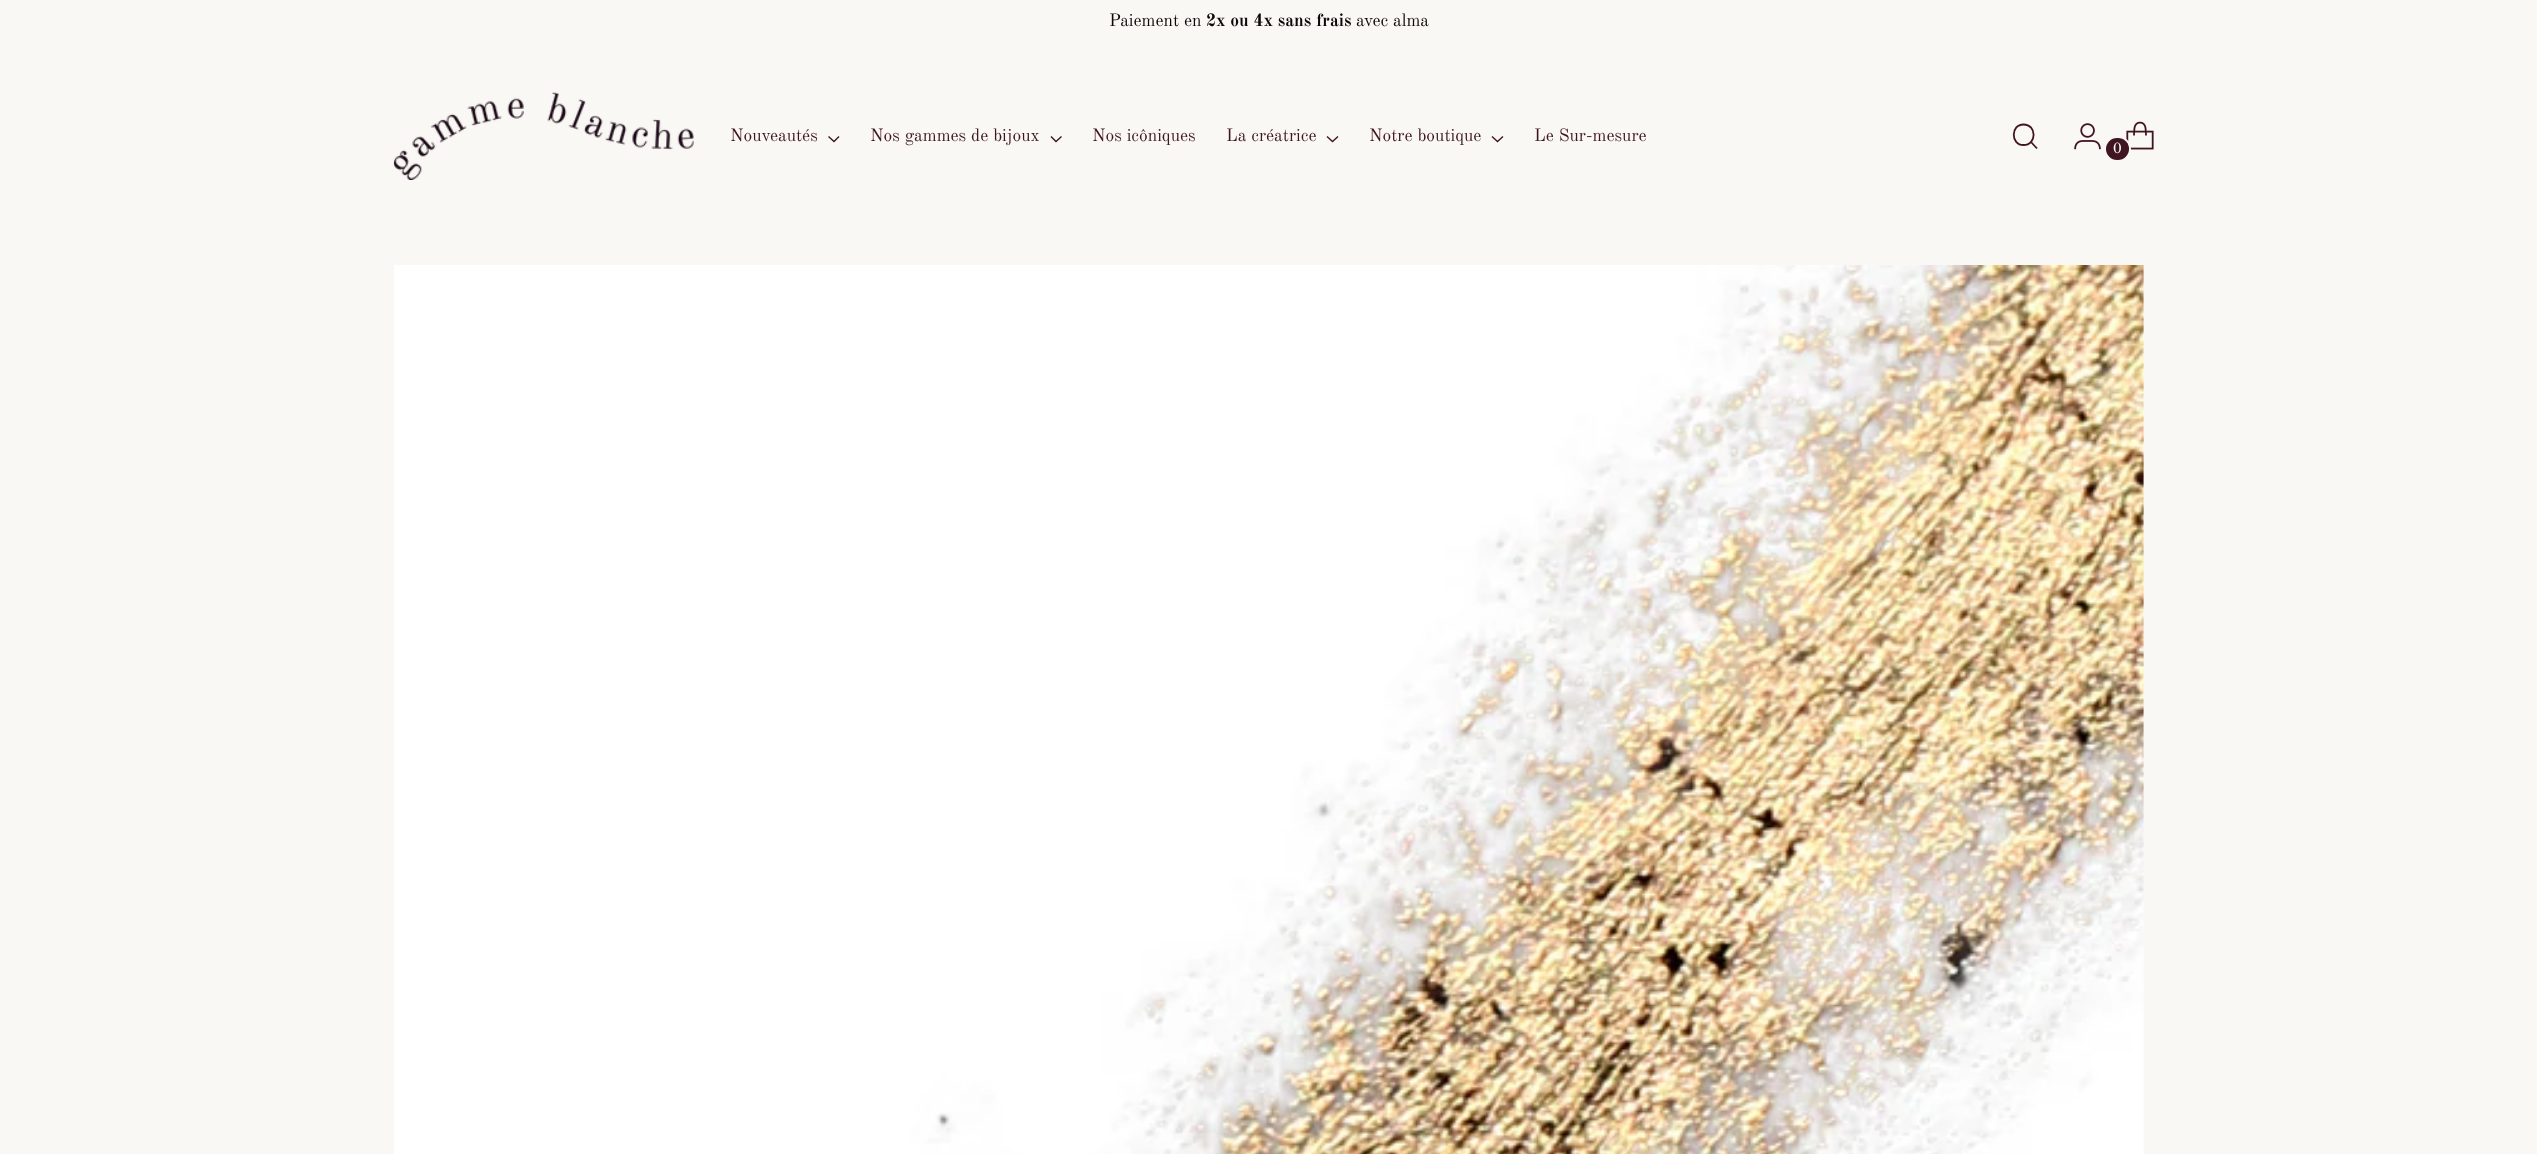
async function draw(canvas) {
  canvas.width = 2537;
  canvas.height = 1154;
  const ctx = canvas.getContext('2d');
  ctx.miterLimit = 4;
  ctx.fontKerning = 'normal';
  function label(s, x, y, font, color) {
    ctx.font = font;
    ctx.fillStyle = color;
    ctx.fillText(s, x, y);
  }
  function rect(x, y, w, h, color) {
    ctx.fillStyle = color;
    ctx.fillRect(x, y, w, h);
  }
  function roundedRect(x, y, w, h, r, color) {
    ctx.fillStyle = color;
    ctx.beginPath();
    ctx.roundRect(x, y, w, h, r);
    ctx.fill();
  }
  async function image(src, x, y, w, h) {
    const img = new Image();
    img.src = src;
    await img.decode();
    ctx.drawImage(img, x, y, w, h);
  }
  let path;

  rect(0, 0, 2537, 1154, '#faf8f4');
  label('Paiement en', 1109, 26, '17.5px Old Standard TT', '#0d0909');
  label('2x ou 4x sans frais', 1206, 26, 'bold 17.5px Old Standard TT', '#0d0909');
  label('avec alma', 1356, 26, '17.5px Old Standard TT', '#0d0909');
  await image('assets/img1.png', 393, 92, 301, 88);
  label('Nouveautés', 730, 141, '17.5px Old Standard TT', '#3f1521');
  path = new Path2D('M828.5 136.5L834 141.5L839 136.5');
  ctx.strokeStyle = '#3f1521';
  ctx.lineWidth = 1.4;
  ctx.stroke(path);
  label('Nos gammes de bijoux', 870, 141, '17.5px Old Standard TT', '#3f1521');
  path = new Path2D('M1051 136.5L1056 141.5L1061.5 136.5');
  ctx.stroke(path);
  label('Nos icôniques', 1092, 141, '17.5px Old Standard TT', '#3f1521');
  label('La créatrice', 1226, 141, '17.5px Old Standard TT', '#3f1521');
  path = new Path2D('M1327 136.5L1332.5 141.5L1338 136.5');
  ctx.stroke(path);
  label('Notre boutique', 1369, 141, '17.5px Old Standard TT', '#3f1521');
  path = new Path2D('M1492 136.5L1497.5 141.5L1503 136.5');
  ctx.stroke(path);
  label('Le Sur-mesure', 1534, 141, '17.5px Old Standard TT', '#3f1521');
  path = new Path2D('M2023.5 145C2037 145 2037 124.5 2023.5 124.5C2010.5 124.5 2010.5 145 2023.5 145Z');
  ctx.lineWidth = 1.8;
  ctx.lineCap = 'round';
  ctx.stroke(path);
  path = new Path2D('M2031 142L2037 148.5');
  ctx.lineCap = 'butt';
  ctx.stroke(path);
  await image('assets/img2.png', 2074, 123, 27, 27);
  await image('assets/img3.png', 2126, 121, 28, 29);
  ctx.beginPath();
  ctx.roundRect(2106, 137, 24, 25, 12);
  ctx.strokeStyle = '#faf8f4';
  ctx.lineWidth = 2;
  ctx.stroke();
  roundedRect(2106, 138, 23, 22, 11, '#3f1521');
  label('0', 2113, 153, '15px Old Standard TT', '#faf8f4');
  await image('assets/img4.png', 394, 265, 1750, 889);
}

draw(document.querySelector('canvas'));
